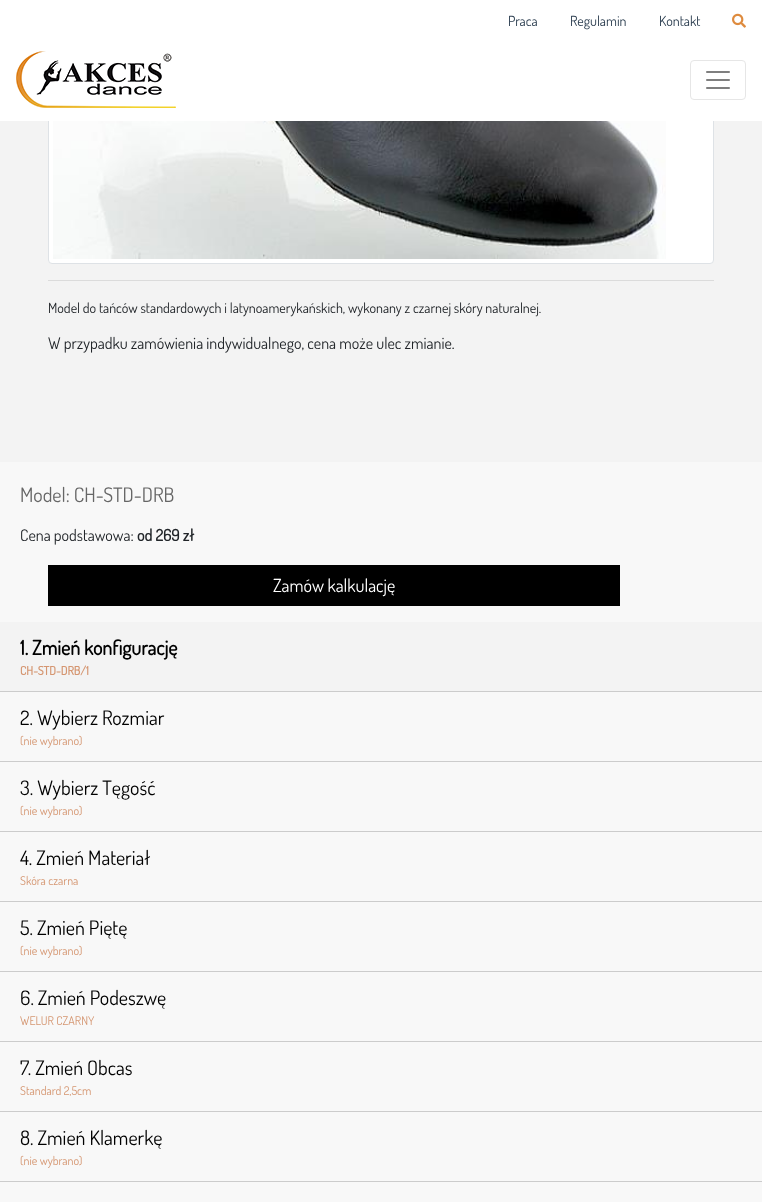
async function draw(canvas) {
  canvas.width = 762;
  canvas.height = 1202;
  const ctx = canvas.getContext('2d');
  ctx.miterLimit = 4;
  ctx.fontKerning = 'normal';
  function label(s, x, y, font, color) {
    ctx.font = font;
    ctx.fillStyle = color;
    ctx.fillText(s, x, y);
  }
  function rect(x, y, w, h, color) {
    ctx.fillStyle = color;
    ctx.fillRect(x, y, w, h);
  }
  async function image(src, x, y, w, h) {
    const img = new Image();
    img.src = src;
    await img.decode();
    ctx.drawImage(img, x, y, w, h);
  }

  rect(0, 0, 762, 1202, '#f3f3f3');
  ctx.fillStyle = '#fff';
  ctx.beginPath();
  ctx.roundRect(48.5, -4.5, 665, 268, 3.5);
  ctx.fill();
  ctx.strokeStyle = '#dee2e6';
  ctx.stroke();
  rect(0, 0, 762, 121, '#fff');
  label('Praca', 508, 26, '14px Dosis', '#2c3e50');
  label('Regulamin', 570, 26, '14px Dosis', '#2c3e50');
  label('Kontakt', 659, 26, '14px Dosis', '#2c3e50');
  await image('assets/img1.png', 732, 13, 14, 15);
  await image('assets/img2.png', 16, 51, 160, 57);
  ctx.beginPath();
  ctx.roundRect(690.5, 60.5, 55, 39, 3.5);
  ctx.strokeStyle = '#e6e6e6';
  ctx.stroke();
  await image('assets/img3.png', 706, 71, 24, 18);
  await image('assets/img4.png', 53, 121, 613, 138);
  rect(48, 280, 666, 1, '#dbdbdb');
  label('Model do tańców standardowych i latynoamerykańskich, wykonany z czarnej skóry naturalnej.', 48, 313, '14px Dosis', '#212529');
  label('W przypadku zamówienia indywidualnego, cena może ulec zmianie.', 48, 349, '16px Dosis', '#212529');
  rect(0, 462, 762, 740, '#f8f8f8');
  label('Model: CH-STD-DRB', 20, 502, '20px Dosis', '#666');
  label('Cena podstawowa:', 20, 541, '16px Dosis', '#212529');
  label('od 269 zł', 137, 541, 'bold 16px Dosis', '#212529');
  rect(48, 565, 572, 41, '#000');
  label('Zamów kalkulację', 273, 592, '18px Dosis', '#fff');
  rect(0, 622, 762, 69, '#f3f3f3');
  rect(0, 691, 762, 1, '#ccc');
  label('1. Zmień konfigurację', 20, 655, 'bold 20px Dosis', '#000');
  label('CH-STD-DRB/1', 20, 675, 'bold 12px Dosis', '#d59671');
  rect(0, 761, 762, 1, '#ccc');
  label('2. Wybierz Rozmiar', 20, 725, '20px Dosis', '#000');
  label('(nie wybrano)', 20, 745, '12px Dosis', '#d59671');
  rect(0, 831, 762, 1, '#ccc');
  label('3. Wybierz Tęgość', 20, 795, '20px Dosis', '#000');
  label('(nie wybrano)', 20, 815, '12px Dosis', '#d59671');
  rect(0, 901, 762, 1, '#ccc');
  label('4. Zmień Materiał', 20, 865, '20px Dosis', '#000');
  label('Skóra czarna', 20, 885, '12px Dosis', '#d59671');
  rect(0, 971, 762, 1, '#ccc');
  label('5. Zmień Piętę', 20, 935, '20px Dosis', '#000');
  label('(nie wybrano)', 20, 955, '12px Dosis', '#d59671');
  rect(0, 1041, 762, 1, '#ccc');
  label('6. Zmień Podeszwę', 20, 1005, '20px Dosis', '#000');
  label('WELUR CZARNY', 20, 1025, '12px Dosis', '#d59671');
  rect(0, 1111, 762, 1, '#ccc');
  label('7. Zmień Obcas', 20, 1075, '20px Dosis', '#000');
  label('Standard 2,5cm', 20, 1095, '12px Dosis', '#d59671');
  rect(0, 1181, 762, 1, '#ccc');
  label('8. Zmień Klamerkę', 20, 1145, '20px Dosis', '#000');
  label('(nie wybrano)', 20, 1165, '12px Dosis', '#d59671');
}

draw(document.querySelector('canvas'));
